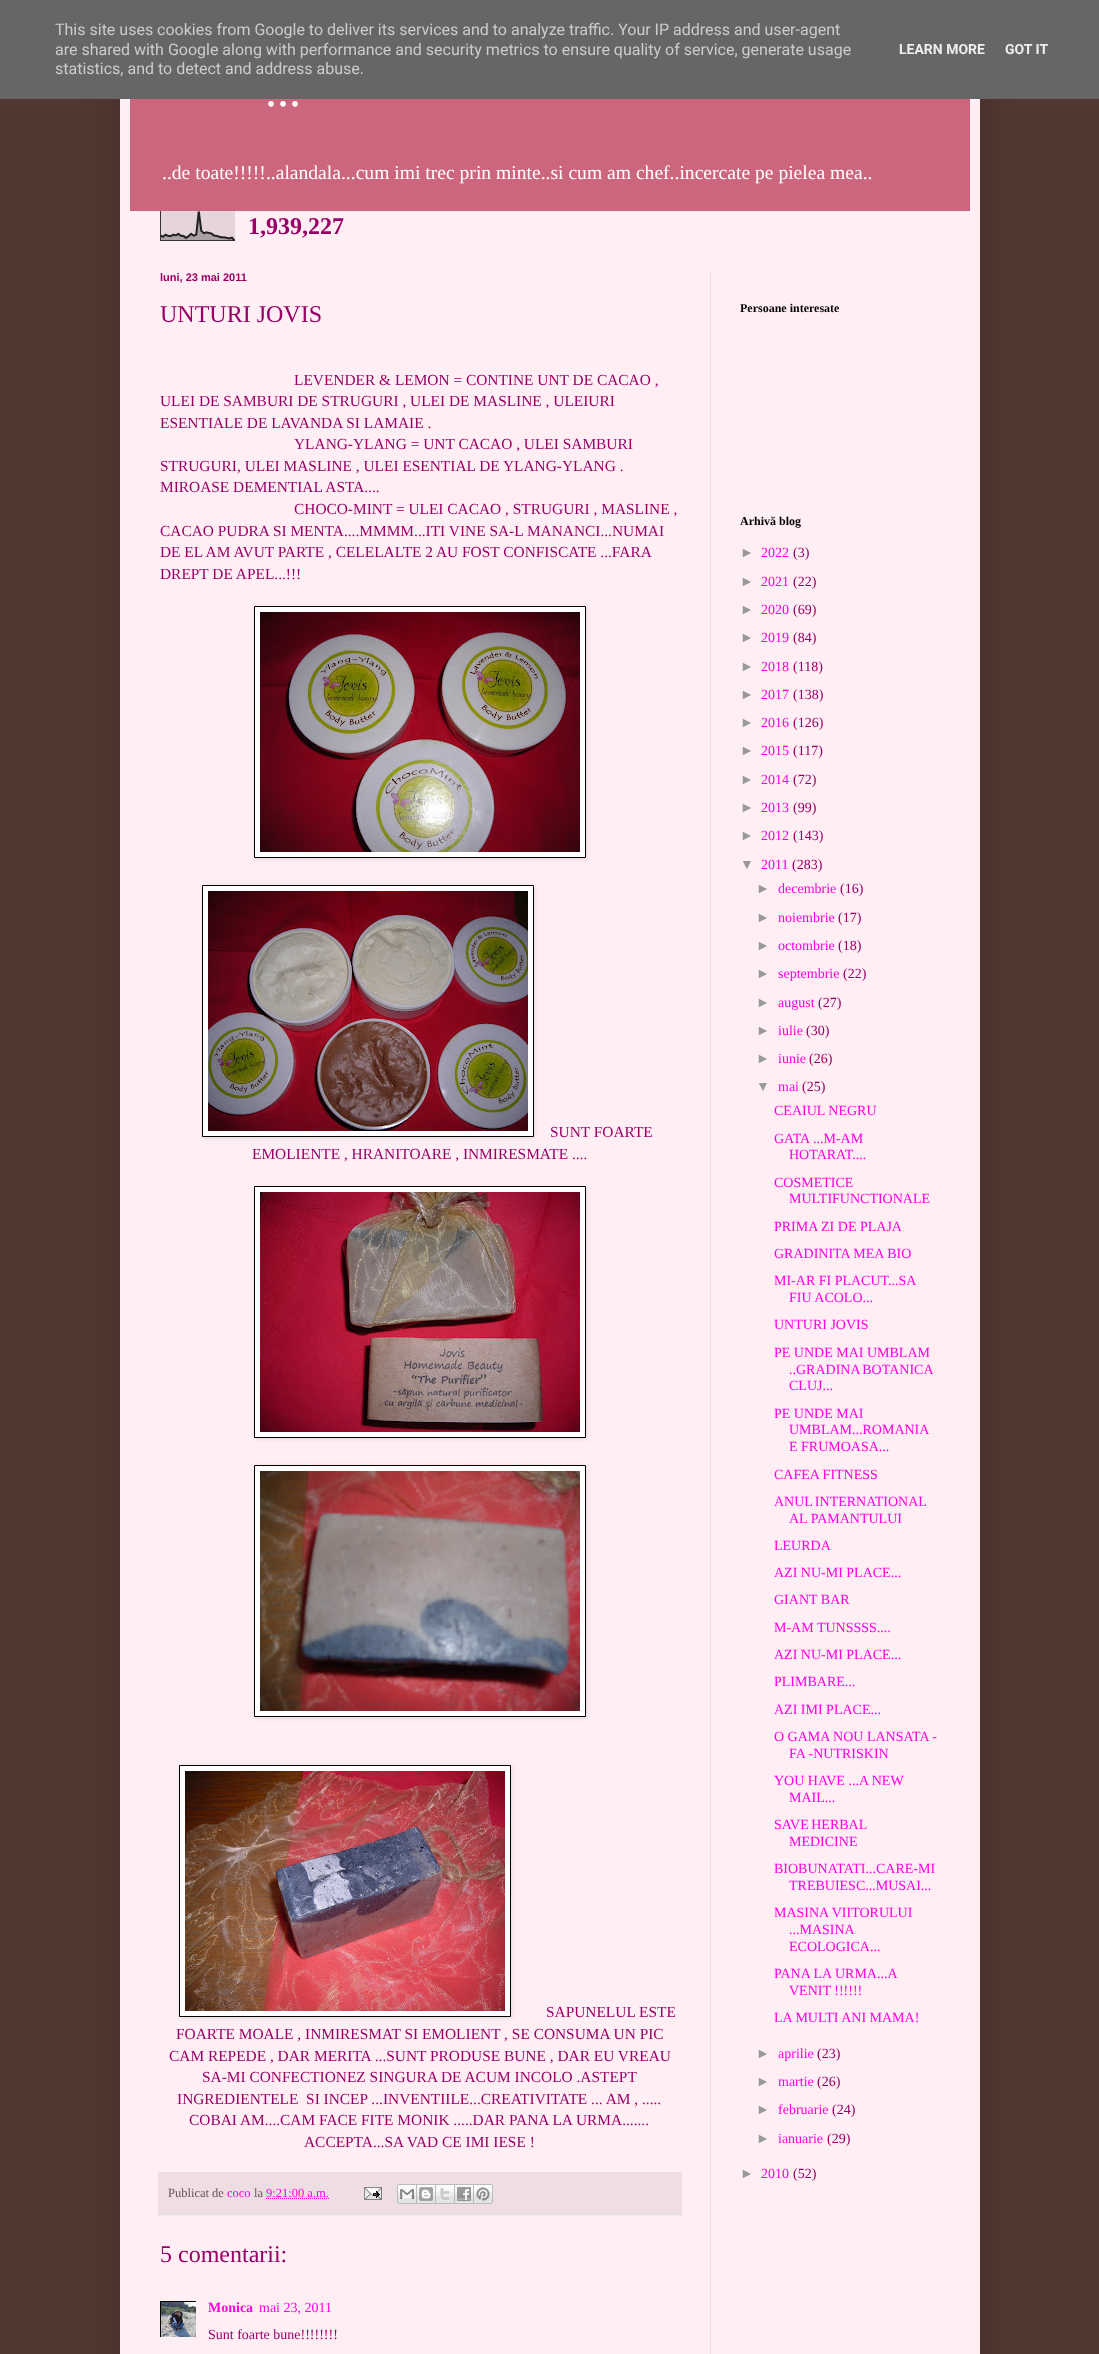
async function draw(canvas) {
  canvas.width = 1099;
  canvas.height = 2354;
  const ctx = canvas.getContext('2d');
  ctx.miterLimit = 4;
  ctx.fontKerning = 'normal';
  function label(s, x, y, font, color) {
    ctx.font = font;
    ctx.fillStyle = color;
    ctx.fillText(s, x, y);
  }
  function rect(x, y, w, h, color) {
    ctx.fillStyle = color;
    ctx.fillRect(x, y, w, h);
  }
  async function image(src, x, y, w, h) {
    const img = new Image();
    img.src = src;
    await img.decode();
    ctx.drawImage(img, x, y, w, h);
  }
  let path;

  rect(0, 0, 1099, 2354, '#513831');
  ctx.fillStyle = '#00000026';
  ctx.filter = 'blur(20px)';
  ctx.beginPath();
  ctx.rect(120, 30, 860, 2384);
  ctx.fill();
  ctx.filter = 'none';
  rect(0, 0, 1099, 99, '#666');
  label('This site uses cookies from Google to deliver its services and to analyze traffic. Your IP address and user-agent', 55, 35, '16px Roboto', '#ccc');
  label('are shared with Google along with performance and security metrics to ensure quality of service, generate usage', 55, 55, '16px Roboto', '#ccc');
  label('statistics, and to detect and address abuse.', 55, 74, '16px Roboto', '#ccc');
  label('LEARN MORE', 899, 54, 'bold 14px Roboto', '#eee');
  label('GOT IT', 1005, 54, 'bold 14px Roboto', '#eee');
  rect(120, 99, 860, 2255, '#ffeef4');
  rect(130, 99, 840, 112, '#cc667c');
  label('...', 265, 106, '48px Liberation Serif', '#fff');
  label('..de toate!!!!!..alandala...cum imi trec prin minte..si cum am chef..incercate pe pielea mea..', 162, 179, '19.6px Liberation Serif', '#fff');
  await image('assets/img1.png', 160, 211, 75, 30);
  label('1,939,227', 248, 234, 'bold 24px Liberation Serif', '#906');
  rect(710, 271, 1, 2083, '#eedde6');
  label('luni, 23 mai 2011', 160, 281, 'bold 11px Liberation Sans', '#906');
  label('UNTURI JOVIS', 160, 322, '24px Liberation Serif', '#906');
  label('LEVENDER & LEMON = CONTINE UNT DE CACAO ,', 294, 385, '15.4px Liberation Serif', '#906');
  label('ULEI DE SAMBURI DE STRUGURI , ULEI DE MASLINE , ULEIURI', 160, 406, '15.4px Liberation Serif', '#906');
  label('ESENTIALE DE LAVANDA SI LAMAIE .', 160, 428, '15.4px Liberation Serif', '#906');
  label('YLANG-YLANG = UNT CACAO , ULEI SAMBURI', 294, 449, '15.4px Liberation Serif', '#906');
  label('STRUGURI, ULEI MASLINE , ULEI ESENTIAL DE YLANG-YLANG .', 160, 471, '15.4px Liberation Serif', '#906');
  label('MIROASE DEMENTIAL ASTA....', 160, 492, '15.4px Liberation Serif', '#906');
  label('CHOCO-MINT = ULEI CACAO , STRUGURI , MASLINE ,', 294, 514, '15.4px Liberation Serif', '#906');
  label('CACAO PUDRA SI MENTA....MMMM...ITI VINE SA-L MANANCI...NUMAI', 160, 536, '15.4px Liberation Serif', '#906');
  label('DE EL AM AVUT PARTE , CELELALTE 2 AU FOST CONFISCATE ...FARA', 160, 557, '15.4px Liberation Serif', '#906');
  label('DREPT DE APEL...!!!', 160, 579, '15.4px Liberation Serif', '#906');
  ctx.fillStyle = '#0000001a';
  ctx.filter = 'blur(2.5px)';
  ctx.beginPath();
  ctx.rect(255, 607, 332, 252);
  ctx.fill();
  ctx.filter = 'none';
  ctx.fillStyle = '#fff';
  ctx.beginPath();
  ctx.rect(254.5, 606.5, 331, 251);
  ctx.fill();
  ctx.strokeStyle = '#000';
  ctx.stroke();
  await image('assets/img2.png', 260, 612, 320, 240);
  ctx.fillStyle = '#0000001a';
  ctx.filter = 'blur(2.5px)';
  ctx.beginPath();
  ctx.rect(203, 886, 332, 252);
  ctx.fill();
  ctx.filter = 'none';
  ctx.fillStyle = '#fff';
  ctx.beginPath();
  ctx.rect(202.5, 885.5, 331, 251);
  ctx.fill();
  ctx.stroke();
  await image('assets/img3.png', 208, 891, 320, 240);
  label('SUNT FOARTE', 550, 1137, '15.4px Liberation Serif', '#906');
  label('EMOLIENTE , HRANITOARE , INMIRESMATE ....', 252, 1159, '15.4px Liberation Serif', '#906');
  ctx.fillStyle = '#0000001a';
  ctx.filter = 'blur(2.5px)';
  ctx.beginPath();
  ctx.rect(255, 1187, 332, 252);
  ctx.fill();
  ctx.filter = 'none';
  ctx.fillStyle = '#fff';
  ctx.beginPath();
  ctx.rect(254.5, 1186.5, 331, 251);
  ctx.fill();
  ctx.stroke();
  await image('assets/img4.png', 260, 1192, 320, 240);
  ctx.fillStyle = '#0000001a';
  ctx.filter = 'blur(2.5px)';
  ctx.beginPath();
  ctx.rect(255, 1466, 332, 252);
  ctx.fill();
  ctx.filter = 'none';
  ctx.fillStyle = '#fff';
  ctx.beginPath();
  ctx.rect(254.5, 1465.5, 331, 251);
  ctx.fill();
  ctx.stroke();
  await image('assets/img5.png', 260, 1471, 320, 240);
  ctx.fillStyle = '#0000001a';
  ctx.filter = 'blur(2.5px)';
  ctx.beginPath();
  ctx.rect(180, 1766, 332, 252);
  ctx.fill();
  ctx.filter = 'none';
  ctx.fillStyle = '#fff';
  ctx.beginPath();
  ctx.rect(179.5, 1765.5, 331, 251);
  ctx.fill();
  ctx.stroke();
  await image('assets/img6.png', 185, 1771, 320, 240);
  label('SAPUNELUL ESTE', 546, 2017, '15.4px Liberation Serif', '#906');
  label('FOARTE MOALE , INMIRESMAT SI EMOLIENT , SE CONSUMA UN PIC', 176, 2039, '15.4px Liberation Serif', '#906');
  label('CAM REPEDE , DAR MERITA ...SUNT PRODUSE BUNE , DAR EU VREAU', 169, 2061, '15.4px Liberation Serif', '#906');
  label('SA-MI CONFECTIONEZ SINGURA DE ACUM INCOLO .ASTEPT', 202, 2082, '15.4px Liberation Serif', '#906');
  label('INGREDIENTELE  SI INCEP ...INVENTIILE...CREATIVITATE ... AM , .....', 177, 2104, '15.4px Liberation Serif', '#906');
  label('COBAI AM....CAM FACE FITE MONIK .....DAR PANA LA URMA.......', 189, 2125, '15.4px Liberation Serif', '#906');
  label('ACCEPTA...SA VAD CE IMI IESE !', 304, 2147, '15.4px Liberation Serif', '#906');
  rect(158, 2172, 524, 43, '#eedde2');
  rect(158, 2215, 524, 1, '#eee');
  label('Publicat de', 168, 2197, '12.5px Liberation Serif', '#665556');
  label('coco', 227, 2197, '12.5px Liberation Serif', '#ff00e6');
  label('la', 254, 2197, '12.5px Liberation Serif', '#665556');
  label('9:21:00 a.m.', 266, 2197, '12.5px Liberation Serif', '#ff00e6');
  path = new Path2D('M266 2198.5H329.5');
  ctx.strokeStyle = '#ff00e6';
  ctx.setLineDash([1, 1]);
  ctx.stroke(path);
  await image('assets/img7.png', 364, 2187, 18, 13);
  await image('assets/img8.png', 397, 2184, 20, 20);
  await image('assets/img9.png', 417, 2184, 19, 20);
  await image('assets/img10.png', 436, 2184, 19, 20);
  await image('assets/img11.png', 455, 2184, 19, 20);
  await image('assets/img12.png', 474, 2184, 19, 20);
  label('5 comentarii:', 160, 2262, '24px Liberation Serif', '#906');
  ctx.save();
  ctx.beginPath();
  ctx.rect(160, 2301, 36, 36);
  ctx.clip();
  ctx.strokeStyle = '#000';
  ctx.setLineDash([]);
  ctx.strokeRect(160.5, 2301.5, 37, 37);
  ctx.restore();
  await image('assets/img13.png', 161, 2302, 35, 35);
  label('Monica', 208, 2312, 'bold 14px Liberation Serif', '#ff00e6');
  label('mai 23, 2011', 259, 2312, '14px Liberation Serif', '#ff00e6');
  label('Sunt foarte bune!!!!!!!!', 208, 2339, '14px Liberation Serif', '#906');
  label('Persoane interesate', 740, 312, 'bold 12px Liberation Serif', '#000');
  label('Arhivă blog', 740, 525, 'bold 12px Liberation Serif', '#000');
  label('►', 740, 557, '14px Liberation Sans', '#999');
  label('2022', 761, 557, '14px Liberation Serif', '#ff00e6');
  label('(3)', 793, 557, '14px Liberation Serif', '#906');
  label('►', 740, 586, '14px Liberation Sans', '#999');
  label('2021', 761, 586, '14px Liberation Serif', '#ff00e6');
  label('(22)', 793, 586, '14px Liberation Serif', '#906');
  label('►', 740, 614, '14px Liberation Sans', '#999');
  label('2020', 761, 614, '14px Liberation Serif', '#ff00e6');
  label('(69)', 793, 614, '14px Liberation Serif', '#906');
  label('►', 740, 642, '14px Liberation Sans', '#999');
  label('2019', 761, 642, '14px Liberation Serif', '#ff00e6');
  label('(84)', 793, 642, '14px Liberation Serif', '#906');
  label('►', 740, 671, '14px Liberation Sans', '#999');
  label('2018', 761, 671, '14px Liberation Serif', '#ff00e6');
  label('(118)', 793, 671, '14px Liberation Serif', '#906');
  label('►', 740, 699, '14px Liberation Sans', '#999');
  label('2017', 761, 699, '14px Liberation Serif', '#ff00e6');
  label('(138)', 793, 699, '14px Liberation Serif', '#906');
  label('►', 740, 727, '14px Liberation Sans', '#999');
  label('2016', 761, 727, '14px Liberation Serif', '#ff00e6');
  label('(126)', 793, 727, '14px Liberation Serif', '#906');
  label('►', 740, 755, '14px Liberation Sans', '#999');
  label('2015', 761, 755, '14px Liberation Serif', '#ff00e6');
  label('(117)', 793, 755, '14px Liberation Serif', '#906');
  label('►', 740, 784, '14px Liberation Sans', '#999');
  label('2014', 761, 784, '14px Liberation Serif', '#ff00e6');
  label('(72)', 793, 784, '14px Liberation Serif', '#906');
  label('►', 740, 812, '14px Liberation Sans', '#999');
  label('2013', 761, 812, '14px Liberation Serif', '#ff00e6');
  label('(99)', 793, 812, '14px Liberation Serif', '#906');
  label('►', 740, 840, '14px Liberation Sans', '#999');
  label('2012', 761, 840, '14px Liberation Serif', '#ff00e6');
  label('(143)', 793, 840, '14px Liberation Serif', '#906');
  label('▼', 740, 869, '14px Liberation Sans', '#999');
  label('2011', 761, 869, '14px Liberation Serif', '#ff00e6');
  label('(283)', 792, 869, '14px Liberation Serif', '#906');
  label('►', 756, 893, '14px Liberation Sans', '#999');
  label('decembrie', 778, 893, '14px Liberation Serif', '#ff00e6');
  label('(16)', 840, 893, '14px Liberation Serif', '#906');
  label('►', 756, 922, '14px Liberation Sans', '#999');
  label('noiembrie', 778, 922, '14px Liberation Serif', '#ff00e6');
  label('(17)', 838, 922, '14px Liberation Serif', '#906');
  label('►', 756, 950, '14px Liberation Sans', '#999');
  label('octombrie', 778, 950, '14px Liberation Serif', '#ff00e6');
  label('(18)', 838, 950, '14px Liberation Serif', '#906');
  label('►', 756, 978, '14px Liberation Sans', '#999');
  label('septembrie', 778, 978, '14px Liberation Serif', '#ff00e6');
  label('(22)', 843, 978, '14px Liberation Serif', '#906');
  label('►', 756, 1007, '14px Liberation Sans', '#999');
  label('august', 778, 1007, '14px Liberation Serif', '#ff00e6');
  label('(27)', 818, 1007, '14px Liberation Serif', '#906');
  label('►', 756, 1035, '14px Liberation Sans', '#999');
  label('iulie', 778, 1035, '14px Liberation Serif', '#ff00e6');
  label('(30)', 806, 1035, '14px Liberation Serif', '#906');
  label('►', 756, 1063, '14px Liberation Sans', '#999');
  label('iunie', 778, 1063, '14px Liberation Serif', '#ff00e6');
  label('(26)', 809, 1063, '14px Liberation Serif', '#906');
  label('▼', 756, 1091, '14px Liberation Sans', '#999');
  label('mai', 778, 1091, '14px Liberation Serif', '#ff00e6');
  label('(25)', 802, 1091, '14px Liberation Serif', '#906');
  label('CEAIUL NEGRU', 774, 1115, '14px Liberation Serif', '#ff00e6');
  label('GATA ...M-AM', 774, 1143, '14px Liberation Serif', '#ff00e6');
  label('HOTARAT....', 789, 1159, '14px Liberation Serif', '#ff00e6');
  label('COSMETICE', 774, 1187, '14px Liberation Serif', '#ff00e6');
  label('MULTIFUNCTIONALE', 789, 1203, '14px Liberation Serif', '#ff00e6');
  label('PRIMA ZI DE PLAJA', 774, 1231, '14px Liberation Serif', '#ff00e6');
  label('GRADINITA MEA BIO', 774, 1258, '14px Liberation Serif', '#ff00e6');
  label('MI-AR FI PLACUT...SA', 774, 1285, '14px Liberation Serif', '#ff00e6');
  label('FIU ACOLO...', 789, 1302, '14px Liberation Serif', '#ff00e6');
  label('UNTURI JOVIS', 774, 1329, '14px Liberation Serif', '#ff00e6');
  label('PE UNDE MAI UMBLAM', 774, 1357, '14px Liberation Serif', '#ff00e6');
  ctx.wordSpacing = '-1px';
  label('..GRADINA BOTANICA', 789, 1374, '14px Liberation Serif', '#ff00e6');
  ctx.wordSpacing = '0px';
  label('CLUJ...', 789, 1390, '14px Liberation Serif', '#ff00e6');
  label('PE UNDE MAI', 774, 1418, '14px Liberation Serif', '#ff00e6');
  label('UMBLAM...ROMANIA', 789, 1434, '14px Liberation Serif', '#ff00e6');
  label('E FRUMOASA...', 789, 1451, '14px Liberation Serif', '#ff00e6');
  label('CAFEA FITNESS', 774, 1479, '14px Liberation Serif', '#ff00e6');
  ctx.wordSpacing = '-1px';
  label('ANUL INTERNATIONAL', 774, 1506, '14px Liberation Serif', '#ff00e6');
  ctx.wordSpacing = '0px';
  label('AL PAMANTULUI', 789, 1523, '14px Liberation Serif', '#ff00e6');
  label('LEURDA', 774, 1550, '14px Liberation Serif', '#ff00e6');
  label('AZI NU-MI PLACE...', 774, 1577, '14px Liberation Serif', '#ff00e6');
  label('GIANT BAR', 774, 1604, '14px Liberation Serif', '#ff00e6');
  label('M-AM TUNSSSS....', 774, 1632, '14px Liberation Serif', '#ff00e6');
  label('AZI NU-MI PLACE...', 774, 1659, '14px Liberation Serif', '#ff00e6');
  label('PLIMBARE...', 774, 1686, '14px Liberation Serif', '#ff00e6');
  label('AZI IMI PLACE...', 774, 1714, '14px Liberation Serif', '#ff00e6');
  label('O GAMA NOU LANSATA -', 774, 1741, '14px Liberation Serif', '#ff00e6');
  label('FA -NUTRISKIN', 789, 1758, '14px Liberation Serif', '#ff00e6');
  label('YOU HAVE ...A NEW', 774, 1785, '14px Liberation Serif', '#ff00e6');
  label('MAIL...', 789, 1802, '14px Liberation Serif', '#ff00e6');
  ctx.wordSpacing = '-1px';
  label('SAVE HERBAL', 774, 1829, '14px Liberation Serif', '#ff00e6');
  ctx.wordSpacing = '0px';
  label('MEDICINE', 789, 1846, '14px Liberation Serif', '#ff00e6');
  label('BIOBUNATATI...CARE-MI', 774, 1873, '14px Liberation Serif', '#ff00e6');
  label('TREBUIESC...MUSAI...', 789, 1890, '14px Liberation Serif', '#ff00e6');
  label('MASINA VIITORULUI', 774, 1917, '14px Liberation Serif', '#ff00e6');
  label('...MASINA', 789, 1934, '14px Liberation Serif', '#ff00e6');
  label('ECOLOGICA...', 789, 1951, '14px Liberation Serif', '#ff00e6');
  label('PANA LA URMA...A', 774, 1978, '14px Liberation Serif', '#ff00e6');
  label('VENIT !!!!!!', 789, 1995, '14px Liberation Serif', '#ff00e6');
  label('LA MULTI ANI MAMA!', 774, 2022, '14px Liberation Serif', '#ff00e6');
  label('►', 756, 2058, '14px Liberation Sans', '#999');
  label('aprilie', 778, 2058, '14px Liberation Serif', '#ff00e6');
  label('(23)', 817, 2058, '14px Liberation Serif', '#906');
  label('►', 756, 2086, '14px Liberation Sans', '#999');
  label('martie', 778, 2086, '14px Liberation Serif', '#ff00e6');
  label('(26)', 817, 2086, '14px Liberation Serif', '#906');
  label('►', 756, 2114, '14px Liberation Sans', '#999');
  label('februarie', 778, 2114, '14px Liberation Serif', '#ff00e6');
  label('(24)', 832, 2114, '14px Liberation Serif', '#906');
  label('►', 756, 2143, '14px Liberation Sans', '#999');
  label('ianuarie', 778, 2143, '14px Liberation Serif', '#ff00e6');
  label('(29)', 827, 2143, '14px Liberation Serif', '#906');
  label('►', 740, 2178, '14px Liberation Sans', '#999');
  label('2010', 761, 2178, '14px Liberation Serif', '#ff00e6');
  label('(52)', 793, 2178, '14px Liberation Serif', '#906');
}

draw(document.querySelector('canvas'));
